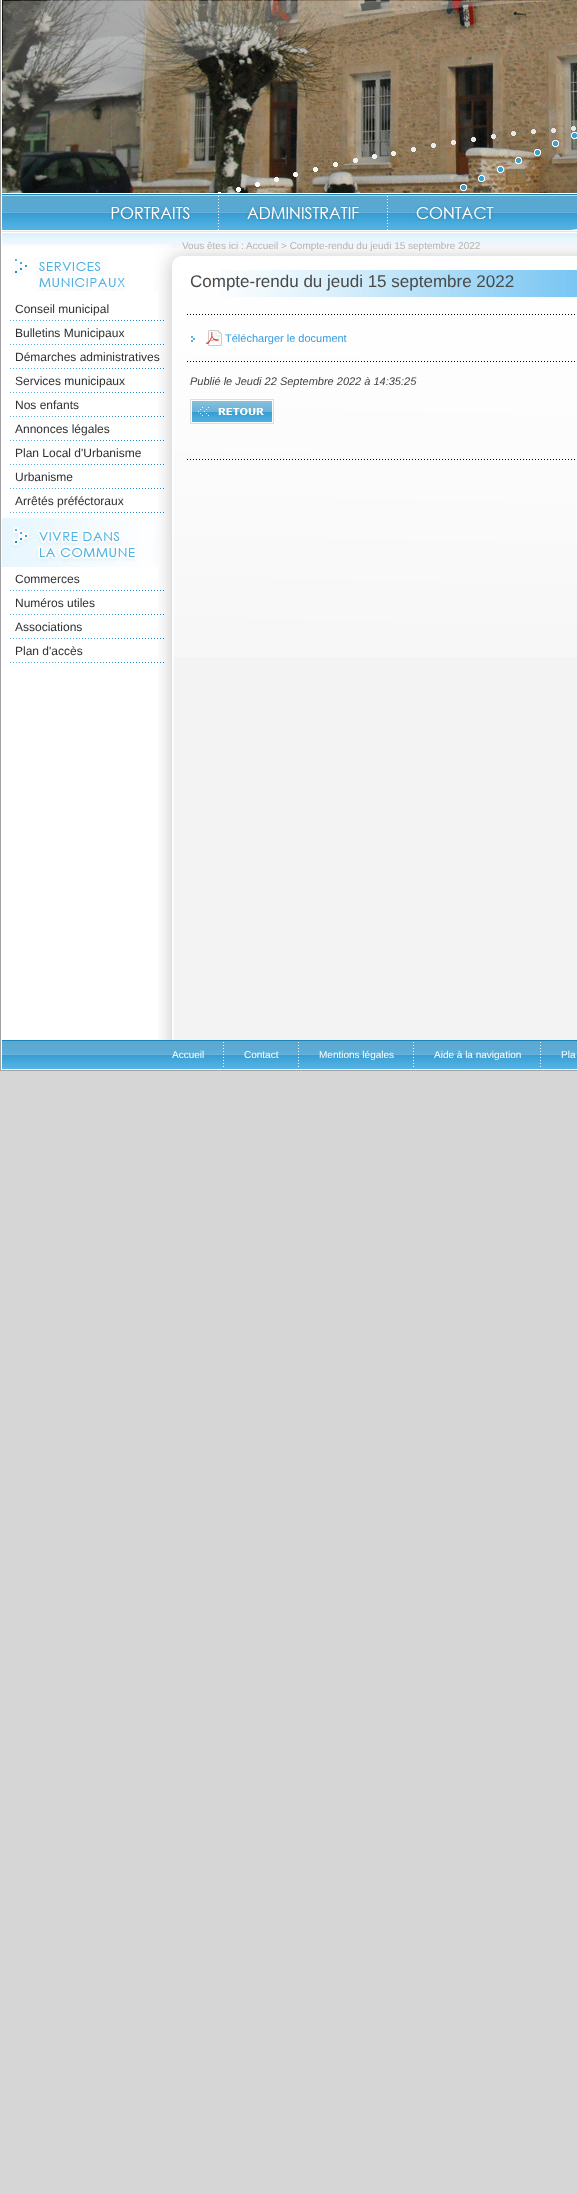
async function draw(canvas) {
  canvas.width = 577;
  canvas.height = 2194;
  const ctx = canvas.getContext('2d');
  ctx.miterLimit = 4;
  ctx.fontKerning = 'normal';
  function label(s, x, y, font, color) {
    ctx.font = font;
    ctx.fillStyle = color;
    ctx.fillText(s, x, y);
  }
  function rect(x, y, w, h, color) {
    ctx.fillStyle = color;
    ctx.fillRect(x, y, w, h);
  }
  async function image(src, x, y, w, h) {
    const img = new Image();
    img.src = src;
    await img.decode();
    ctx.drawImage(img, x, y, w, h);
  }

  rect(0, 0, 577, 2194, '#d7d6d6');
  rect(1, 0, 576, 1070, '#fff');
  rect(0, 1070, 577, 1, '#a2a2a2');
  rect(0, 0, 1, 1071, '#a2a2a2');
  await image('assets/img1.png', 2, 0, 575, 193);
  await image('assets/img2.png', 2, 194, 575, 36);
  rect(2, 231, 575, 1, '#e5e5e5');
  await image('assets/img3.png', 218, 196, 1, 34);
  await image('assets/img4.png', 109, 205, 82, 16);
  await image('assets/img3.png', 387, 196, 1, 34);
  await image('assets/img5.png', 246, 205, 113, 16);
  await image('assets/img6.png', 415, 205, 79, 16);
  await image('assets/img7.png', 570, 228, 7, 2);
  await image('assets/img8.png', 158, 291, 419, 749);
  await image('assets/img9.png', 2, 233, 575, 15);
  await image('assets/img13.png', 172, 248, 405, 409);
  label('Vous êtes ici :', 182, 249, '10px Liberation Sans', '#b3b3b3');
  label('Accueil > Compte-rendu du jeudi 15 septembre 2022', 246, 249, '10px Liberation Sans', '#b3b3b3');
  await image('assets/img10.png', 2, 244, 170, 47);
  await image('assets/img11.png', 10, 320, 154, 1);
  label('Conseil municipal', 15, 313, '12px Liberation Sans', '#303030');
  await image('assets/img11.png', 10, 344, 154, 1);
  label('Bulletins Municipaux', 15, 337, '12px Liberation Sans', '#303030');
  await image('assets/img11.png', 10, 368, 154, 1);
  label('Démarches administratives', 15, 361, '12px Liberation Sans', '#303030');
  await image('assets/img11.png', 10, 392, 154, 1);
  label('Services municipaux', 15, 385, '12px Liberation Sans', '#303030');
  await image('assets/img11.png', 10, 416, 154, 1);
  label('Nos enfants', 15, 409, '12px Liberation Sans', '#303030');
  await image('assets/img11.png', 10, 440, 154, 1);
  label('Annonces légales', 15, 433, '12px Liberation Sans', '#303030');
  await image('assets/img11.png', 10, 464, 154, 1);
  label('Plan Local d\'Urbanisme', 15, 457, '12px Liberation Sans', '#303030');
  await image('assets/img11.png', 10, 488, 154, 1);
  label('Urbanisme', 15, 481, '12px Liberation Sans', '#303030');
  await image('assets/img11.png', 10, 512, 154, 1);
  label('Arrêtés préféctoraux', 15, 505, '12px Liberation Sans', '#303030');
  await image('assets/img12.png', 2, 518, 156, 49);
  await image('assets/img11.png', 10, 590, 154, 1);
  label('Commerces', 15, 583, '12px Liberation Sans', '#303030');
  await image('assets/img11.png', 10, 614, 154, 1);
  label('Numéros utiles', 15, 607, '12px Liberation Sans', '#303030');
  await image('assets/img11.png', 10, 638, 154, 1);
  label('Associations', 15, 631, '12px Liberation Sans', '#303030');
  await image('assets/img11.png', 10, 662, 154, 1);
  label('Plan d\'accès', 15, 655, '12px Liberation Sans', '#303030');
  await image('assets/img14.png', 220, 270, 357, 27);
  label('Compte-rendu du jeudi 15 septembre 2022', 190, 287, '17px Liberation Sans', '#494949');
  await image('assets/img15.png', 187, 314, 388, 1);
  await image('assets/img16.png', 191, 336, 4, 6);
  await image('assets/img17.png', 206, 330, 16, 16);
  label('Télécharger le document', 225, 342, '11px Liberation Sans', '#369de1');
  await image('assets/img18.png', 187, 361, 388, 1);
  label('Publié le Jeudi 22 Septembre 2022 à 14:35:25', 190, 385, 'italic 11px Liberation Sans', '#424242');
  await image('assets/img19.png', 190, 399, 84, 25);
  await image('assets/img20.png', 187, 459, 388, 1);
  await image('assets/img21.png', 2, 1040, 575, 29);
  await image('assets/img22.png', 223, 1042, 1, 25);
  label('Accueil', 172, 1058, '10px Liberation Sans', '#fff');
  await image('assets/img22.png', 298, 1042, 1, 25);
  label('Contact', 244, 1058, '10px Liberation Sans', '#fff');
  await image('assets/img22.png', 413, 1042, 1, 25);
  label('Mentions légales', 319, 1058, '10px Liberation Sans', '#fff');
  await image('assets/img22.png', 540, 1042, 1, 25);
  label('Aide à la navigation', 434, 1058, '10px Liberation Sans', '#fff');
  label('Pla', 561, 1058, '10px Liberation Sans', '#fff');
}

draw(document.querySelector('canvas'));
